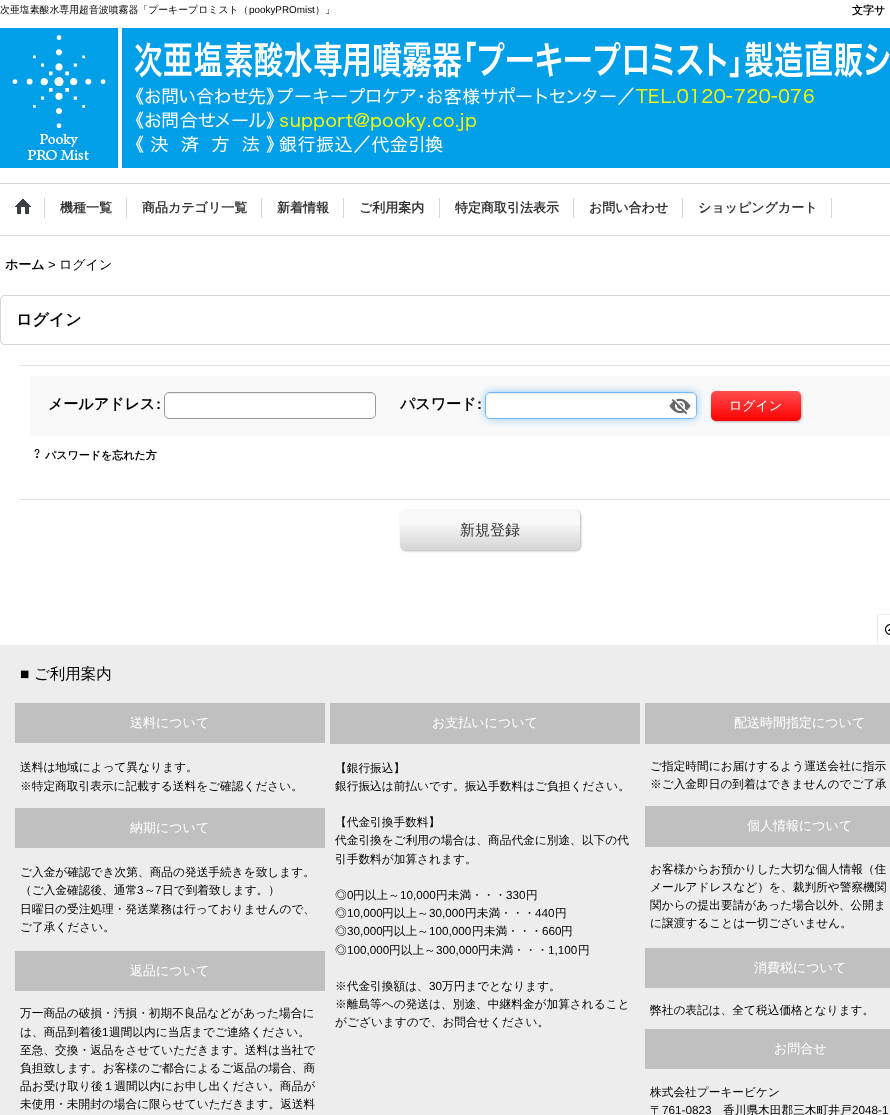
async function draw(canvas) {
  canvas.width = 890;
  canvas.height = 1115;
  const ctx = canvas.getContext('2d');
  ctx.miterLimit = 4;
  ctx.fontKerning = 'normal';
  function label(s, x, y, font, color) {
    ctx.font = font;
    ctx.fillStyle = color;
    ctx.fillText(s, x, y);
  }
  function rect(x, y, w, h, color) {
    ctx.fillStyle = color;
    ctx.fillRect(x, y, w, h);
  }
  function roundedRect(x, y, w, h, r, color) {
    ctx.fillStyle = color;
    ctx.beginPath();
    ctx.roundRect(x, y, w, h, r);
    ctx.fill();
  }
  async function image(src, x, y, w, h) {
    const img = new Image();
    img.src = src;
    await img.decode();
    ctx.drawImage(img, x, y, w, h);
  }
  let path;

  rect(0, 0, 890, 1115, '#fff');
  rect(0, 183, 890, 1, '#d6d6d6');
  label('次亜塩素酸水専用超音波噴霧器「プーキープロミスト（', 0, 13, '500 9.9px WenQuanYi Zen Hei', '#000');
  label('pookyPROmist', 249, 13, '9.9px Liberation Sans', '#000');
  label('）」', 315, 13, '500 9.9px WenQuanYi Zen Hei', '#000');
  label('文字サ', 852, 14, 'bold 11px WenQuanYi Zen Hei', '#000');
  await image('assets/img1.png', 0, 28, 890, 140);
  rect(0, 235, 890, 1, '#d6d6d6');
  rect(44, 198, 1, 20, '#d6d6d6');
  await image('assets/img2.png', 15, 199, 16, 15);
  rect(126, 198, 1, 20, '#d6d6d6');
  label('機種一覧', 60, 212, 'bold 13px WenQuanYi Zen Hei', '#333');
  rect(261, 198, 1, 20, '#d6d6d6');
  label('商品カテゴリ一覧', 142, 212, 'bold 13px WenQuanYi Zen Hei', '#333');
  rect(343, 198, 1, 20, '#d6d6d6');
  label('新着情報', 277, 212, 'bold 13px WenQuanYi Zen Hei', '#333');
  rect(439, 198, 1, 20, '#d6d6d6');
  label('ご利用案内', 359, 212, 'bold 13px WenQuanYi Zen Hei', '#333');
  rect(573, 198, 1, 20, '#d6d6d6');
  label('特定商取引法表示', 455, 212, 'bold 13px WenQuanYi Zen Hei', '#333');
  rect(682, 198, 1, 20, '#d6d6d6');
  label('お問い合わせ', 589, 212, 'bold 13px WenQuanYi Zen Hei', '#333');
  rect(831, 198, 1, 20, '#d6d6d6');
  label('ショッピングカート', 698, 212, 'bold 13px WenQuanYi Zen Hei', '#333');
  label('ホーム', 5, 269, 'bold 13px WenQuanYi Zen Hei', '#000');
  label('>', 48, 269, '13px Liberation Sans', '#000');
  label('ログイン', 59, 269, '500 13px WenQuanYi Zen Hei', '#000');
  ctx.beginPath();
  ctx.roundRect(0.5, 295.5, 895, 49, 4.5);
  ctx.strokeStyle = '#d6d6d6';
  ctx.stroke();
  label('ログイン', 16, 325, 'bold 16px WenQuanYi Zen Hei', '#000');
  rect(20, 365, 870, 1, '#e0dfe3');
  rect(30, 376, 860, 60, '#f9f9f9');
  label('メールアドレス', 48, 409, 'bold 15px WenQuanYi Zen Hei', '#000');
  label(':', 156, 409, 'bold 15px Liberation Sans', '#000');
  roundedRect(164, 392, 212, 27, 5, '#fff');
  ctx.fillStyle = '#ececec';
  path = new Path2D('M169 394H371C373 394 375 396 375 398V397C375 395 373 393 371 393H169C167 393 165 395 165 397V398C165 396 167 394 169 394Z');
  ctx.fill(path);
  ctx.beginPath();
  ctx.roundRect(164.5, 392.5, 211, 26, 4.5);
  ctx.strokeStyle = '#999';
  ctx.stroke();
  label('パスワード', 400, 409, 'bold 15px WenQuanYi Zen Hei', '#000');
  ctx.fillStyle = '#52a8ec99';
  ctx.filter = 'blur(4px)';
  ctx.beginPath();
  ctx.roundRect(485, 392, 212, 27, 5);
  ctx.fill();
  ctx.filter = 'none';
  roundedRect(485, 392, 212, 27, 5, '#fff');
  ctx.fillStyle = '#ececec';
  path = new Path2D('M490 394H692C694 394 696 396 696 398V397C696 395 694 393 692 393H490C488 393 486 395 486 397V398C486 396 488 394 490 394Z');
  ctx.fill(path);
  ctx.beginPath();
  ctx.roundRect(485.5, 392.5, 211, 26, 4.5);
  ctx.strokeStyle = '#52a8eccc';
  ctx.stroke();
  await image('assets/img3.png', 669, 398, 22, 16);
  label(':', 477, 409, 'bold 15px Liberation Sans', '#000');
  ctx.fillStyle = '#0000004d';
  ctx.filter = 'blur(1px)';
  ctx.beginPath();
  ctx.roundRect(712, 392, 90, 30, 5);
  ctx.fill();
  ctx.filter = 'none';
  await image('assets/img4.png', 711, 391, 90, 30);
  label('ログイン', 729, 410, '500 13px WenQuanYi Zen Hei', '#fff');
  await image('assets/img5.png', 34, 449, 6, 9);
  label('パスワードを忘れた方', 45, 459, 'bold 11px WenQuanYi Zen Hei', '#000');
  rect(20, 499, 870, 1, '#e0dfe3');
  ctx.fillStyle = '#0000004d';
  ctx.filter = 'blur(1px)';
  ctx.beginPath();
  ctx.roundRect(401, 511, 180, 40, 5);
  ctx.fill();
  ctx.filter = 'none';
  roundedRect(400, 510, 180, 40, 5, '#f9f9f9');
  await image('assets/img6.png', 400, 525, 180, 25);
  label('新規登録', 460, 535, '500 15px WenQuanYi Zen Hei', '#333');
  await image('assets/img7.png', 885, 624, 5, 11);
  rect(877, 614, 13, 1, '#ededed');
  rect(877, 614, 1, 31, '#ededed');
  rect(0, 645, 890, 470, '#ededed');
  label('■', 20, 679, '15.5px Liberation Sans', '#000');
  label('ご利用案内', 34, 679, '500 15.5px WenQuanYi Zen Hei', '#000');
  rect(15, 703, 310, 40, '#c0c0c0');
  label('送料について', 130, 727, '500 13px WenQuanYi Zen Hei', '#fff');
  label('送料は地域によって異なります。', 20, 771, '500 11.7px WenQuanYi Zen Hei', '#000');
  label('※特定商取引表示に記載する送料をご確認ください。', 20, 790, '500 11.7px WenQuanYi Zen Hei', '#000');
  rect(15, 808, 310, 40, '#c0c0c0');
  label('納期について', 130, 832, '500 13px WenQuanYi Zen Hei', '#fff');
  label('ご入金が確認でき次第、商品の発送手続きを致します。', 20, 876, '500 11.7px WenQuanYi Zen Hei', '#000');
  label('（ご入金確認後、通常', 20, 894, '500 11.7px WenQuanYi Zen Hei', '#000');
  label('3', 137, 894, '11.7px Liberation Sans', '#000');
  label('～', 144, 894, '500 11.7px WenQuanYi Zen Hei', '#000');
  label('7', 155, 894, '11.7px Liberation Sans', '#000');
  label('日で到着致します。）', 162, 894, '500 11.7px WenQuanYi Zen Hei', '#000');
  label('日曜日の受注処理・発送業務は行っておりませんので、', 20, 913, '500 11.7px WenQuanYi Zen Hei', '#000');
  label('ご了承ください。', 20, 931, '500 11.7px WenQuanYi Zen Hei', '#000');
  rect(15, 951, 310, 40, '#c0c0c0');
  label('返品について', 130, 975, '500 13px WenQuanYi Zen Hei', '#fff');
  label('万一商品の破損・汚損・初期不良品などがあった場合に', 20, 1017, '500 11.7px WenQuanYi Zen Hei', '#000');
  label('は、商品到着後', 20, 1036, '500 11.7px WenQuanYi Zen Hei', '#000');
  label('1', 102, 1036, '11.7px Liberation Sans', '#000');
  label('週間以内に当店までご連絡ください。', 109, 1036, '500 11.7px WenQuanYi Zen Hei', '#000');
  label('至急、交換・返品をさせていただきます。送料は当社で', 20, 1054, '500 11.7px WenQuanYi Zen Hei', '#000');
  label('負担致します。お客様のご都合によるご返品の場合、商', 20, 1072, '500 11.7px WenQuanYi Zen Hei', '#000');
  label('品お受け取り後１週間以内にお申し出ください。商品が', 20, 1090, '500 11.7px WenQuanYi Zen Hei', '#000');
  label('未使用・未開封の場合に限らせていただきます。返送料', 20, 1108, '500 11.7px WenQuanYi Zen Hei', '#000');
  rect(330, 703, 310, 41, '#c0c0c0');
  label('お支払いについて', 432, 727, '500 13px WenQuanYi Zen Hei', '#fff');
  label('【銀行振込】', 335, 772, '500 11.7px WenQuanYi Zen Hei', '#000');
  label('銀行振込は前払いです。振込手数料はご負担ください。', 335, 790, '500 11.7px WenQuanYi Zen Hei', '#000');
  label('【代金引換手数料】', 335, 826, '500 11.7px WenQuanYi Zen Hei', '#000');
  label('代金引換をご利用の場合は、商品代金に別途、以下の代', 335, 844, '500 11.7px WenQuanYi Zen Hei', '#000');
  label('引手数料が加算されます。', 335, 863, '500 11.7px WenQuanYi Zen Hei', '#000');
  label('◎', 335, 899, '500 11.7px WenQuanYi Zen Hei', '#000');
  label('0', 347, 899, '11.7px Liberation Sans', '#000');
  label('円以上～', 353, 899, '500 11.7px WenQuanYi Zen Hei', '#000');
  label('10,000', 400, 899, '11.7px Liberation Sans', '#000');
  label('円未満・・・', 436, 899, '500 11.7px WenQuanYi Zen Hei', '#000');
  label('330', 506, 899, '11.7px Liberation Sans', '#000');
  label('円', 526, 899, '500 11.7px WenQuanYi Zen Hei', '#000');
  label('◎', 335, 917, '500 11.7px WenQuanYi Zen Hei', '#000');
  label('10,000', 347, 917, '11.7px Liberation Sans', '#000');
  label('円以上～', 382, 917, '500 11.7px WenQuanYi Zen Hei', '#000');
  label('30,000', 429, 917, '11.7px Liberation Sans', '#000');
  label('円未満・・・', 465, 917, '500 11.7px WenQuanYi Zen Hei', '#000');
  label('440', 535, 917, '11.7px Liberation Sans', '#000');
  label('円', 555, 917, '500 11.7px WenQuanYi Zen Hei', '#000');
  label('◎', 335, 935, '500 11.7px WenQuanYi Zen Hei', '#000');
  label('30,000', 347, 935, '11.7px Liberation Sans', '#000');
  label('円以上～', 382, 935, '500 11.7px WenQuanYi Zen Hei', '#000');
  label('100,000', 429, 935, '11.7px Liberation Sans', '#000');
  label('円未満・・・', 472, 935, '500 11.7px WenQuanYi Zen Hei', '#000');
  label('660', 542, 935, '11.7px Liberation Sans', '#000');
  label('円', 561, 935, '500 11.7px WenQuanYi Zen Hei', '#000');
  label('◎', 335, 954, '500 11.7px WenQuanYi Zen Hei', '#000');
  label('100,000', 347, 954, '11.7px Liberation Sans', '#000');
  label('円以上～', 389, 954, '500 11.7px WenQuanYi Zen Hei', '#000');
  label('300,000', 436, 954, '11.7px Liberation Sans', '#000');
  label('円未満・・・', 478, 954, '500 11.7px WenQuanYi Zen Hei', '#000');
  label('1,100', 548, 954, '11.7px Liberation Sans', '#000');
  label('円', 578, 954, '500 11.7px WenQuanYi Zen Hei', '#000');
  label('※代金引換額は、', 335, 990, '500 11.7px WenQuanYi Zen Hei', '#000');
  label('30', 429, 990, '11.7px Liberation Sans', '#000');
  label('万円までとなります。', 442, 990, '500 11.7px WenQuanYi Zen Hei', '#000');
  label('※離島等への発送は、別途、中継料金が加算されること', 335, 1008, '500 11.7px WenQuanYi Zen Hei', '#000');
  label('がございますので、お問合せください。', 335, 1026, '500 11.7px WenQuanYi Zen Hei', '#000');
  rect(645, 703, 245, 41, '#c0c0c0');
  label('配送時間指定について', 734, 727, '500 13px WenQuanYi Zen Hei', '#fff');
  label('ご指定時間にお届けするよう運送会社に指示', 650, 770, '500 11.7px WenQuanYi Zen Hei', '#000');
  label('※ご入金即日の到着はできませんのでご了承', 650, 788, '500 11.7px WenQuanYi Zen Hei', '#000');
  rect(645, 806, 245, 41, '#c0c0c0');
  label('個人情報について', 747, 830, '500 13px WenQuanYi Zen Hei', '#fff');
  label('お客様からお預かりした大切な個人情報（住', 650, 873, '500 11.7px WenQuanYi Zen Hei', '#000');
  label('メールアドレスなど）を、裁判所や警察機関', 650, 891, '500 11.7px WenQuanYi Zen Hei', '#000');
  label('関からの提出要請があった場合以外、公開ま', 650, 909, '500 11.7px WenQuanYi Zen Hei', '#000');
  label('に譲渡することは一切ございません。', 650, 927, '500 11.7px WenQuanYi Zen Hei', '#000');
  rect(645, 948, 245, 40, '#c0c0c0');
  label('消費税について', 754, 972, '500 13px WenQuanYi Zen Hei', '#fff');
  label('弊社の表記は、全て税込価格となります。', 650, 1014, '500 11.7px WenQuanYi Zen Hei', '#000');
  rect(645, 1029, 245, 40, '#c0c0c0');
  label('お問合せ', 774, 1053, '500 13px WenQuanYi Zen Hei', '#fff');
  label('株式会社プーキービケン', 650, 1096, '500 11.7px WenQuanYi Zen Hei', '#000');
  label('〒', 650, 1114, '500 11.7px WenQuanYi Zen Hei', '#000');
  label('761-0823', 662, 1114, '11.7px Liberation Sans', '#000');
  label('香川県木田郡三木町井戸', 723, 1114, '500 11.7px WenQuanYi Zen Hei', '#000');
  label('2048-1', 852, 1114, '11.7px Liberation Sans', '#000');
}

draw(document.querySelector('canvas'));
